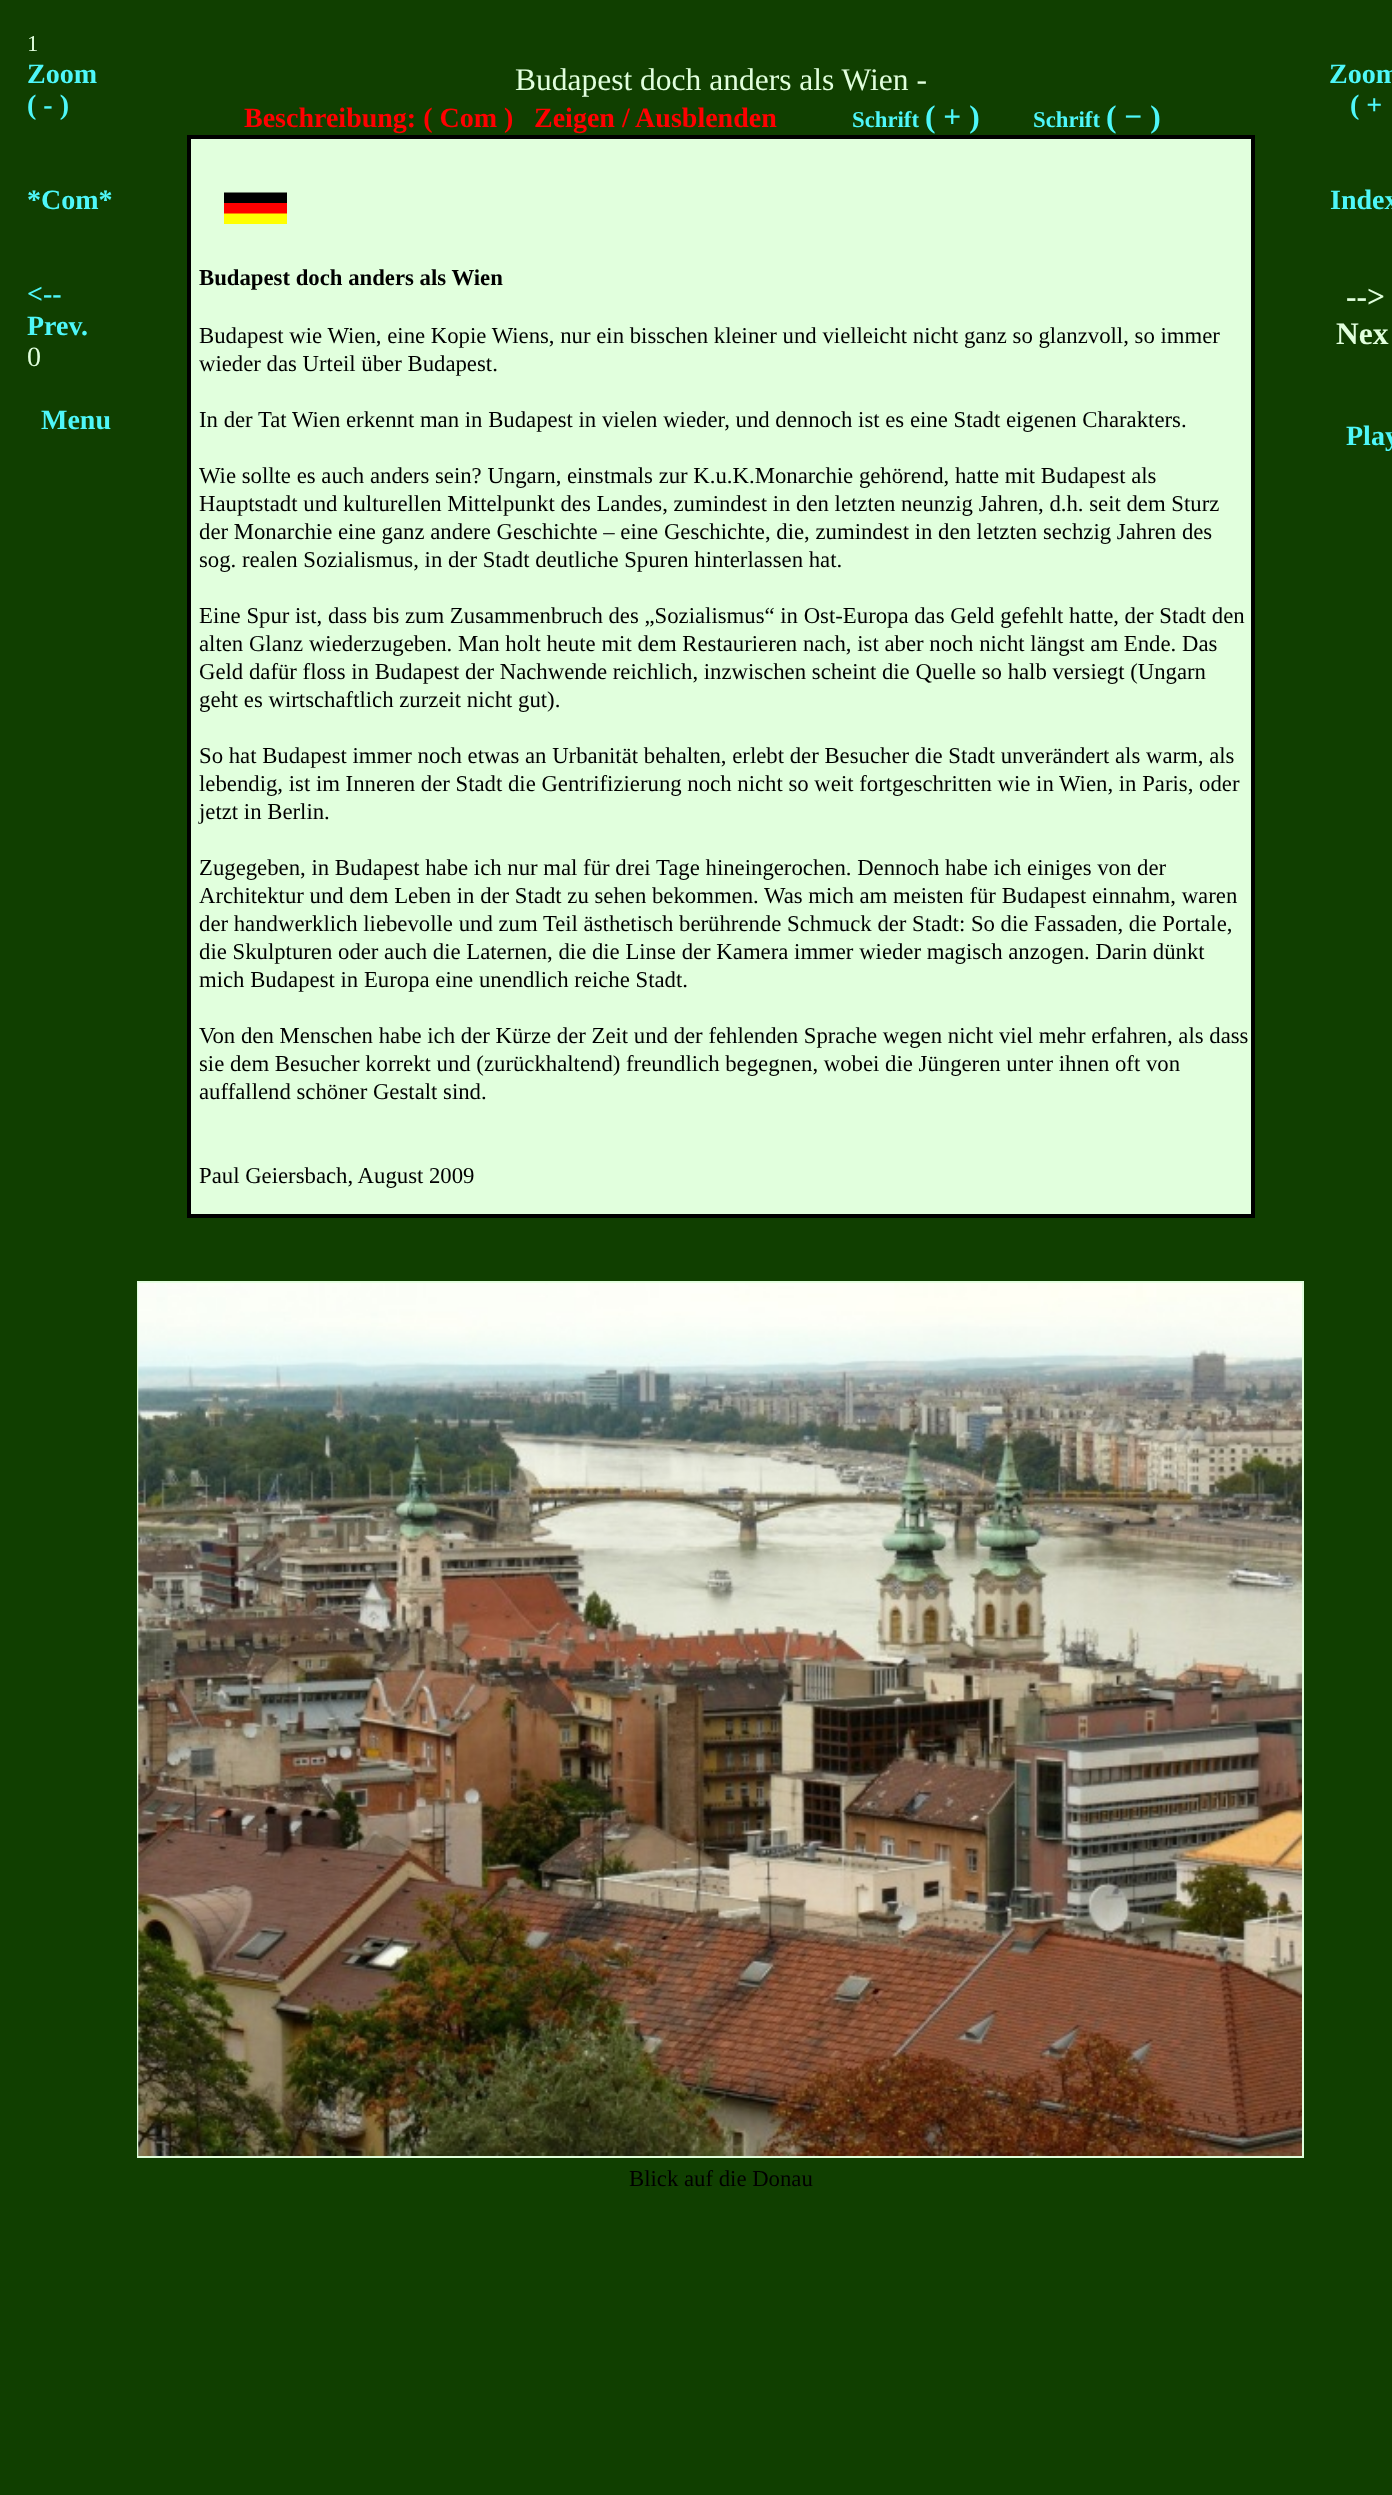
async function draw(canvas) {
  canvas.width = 1392;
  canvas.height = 2495;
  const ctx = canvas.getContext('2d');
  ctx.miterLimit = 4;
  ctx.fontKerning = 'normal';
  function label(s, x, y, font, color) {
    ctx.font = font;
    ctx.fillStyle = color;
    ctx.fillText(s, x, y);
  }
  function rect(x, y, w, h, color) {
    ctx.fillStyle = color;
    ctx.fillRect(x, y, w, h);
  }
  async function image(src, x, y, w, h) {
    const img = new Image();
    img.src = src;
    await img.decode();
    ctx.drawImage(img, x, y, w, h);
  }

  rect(0, 0, 1392, 2495, '#103f00');
  label('1', 27, 51, '22.75px Liberation Serif', '#e1ffdd');
  label('Zoom', 27, 83, 'bold 28px Liberation Serif', '#4ef7f9');
  label('( - )', 27, 114, 'bold 28px Liberation Serif', '#4ef7f9');
  label('*Com*', 27, 209, 'bold 28px Liberation Serif', '#4ef7f9');
  label('<--', 27, 303, 'bold 28px Liberation Serif', '#4ef7f9');
  label('Prev.', 27, 335, 'bold 28px Liberation Serif', '#4ef7f9');
  label('0', 27, 366, '28px Liberation Serif', '#e1ffdd');
  label('Menu', 41, 429, 'bold 28px Liberation Serif', '#4ef7f9');
  label('Budapest doch anders als Wien -', 515, 90, '31.5px Liberation Serif', '#e1ffdd');
  label('Schrift', 852, 127, 'bold 22.75px Liberation Serif', '#4ef7f9');
  label('( + )', 925, 127, 'bold 31.5px Liberation Serif', '#4ef7f9');
  label('Schrift', 1033, 127, 'bold 22.75px Liberation Serif', '#4ef7f9');
  label('( − )', 1106, 127, 'bold 31.5px Liberation Serif', '#4ef7f9');
  ctx.fillStyle = '#e1ffdd';
  ctx.beginPath();
  ctx.rect(189, 137, 1064, 1079);
  ctx.fill();
  ctx.strokeStyle = '#000';
  ctx.lineWidth = 4;
  ctx.stroke();
  await image('assets/img1.png', 224, 192, 63, 32);
  label('Budapest doch anders als Wien', 199, 285, 'bold 22.75px Liberation Serif', '#000');
  label('Budapest wie Wien, eine Kopie Wiens, nur ein bisschen kleiner und vielleicht nicht ganz so glanzvoll, so immer', 199, 343, '22.75px Liberation Serif', '#000');
  label('wieder das Urteil über Budapest.', 199, 371, '22.75px Liberation Serif', '#000');
  label('In der Tat Wien erkennt man in Budapest in vielen wieder, und dennoch ist es eine Stadt eigenen Charakters.', 199, 427, '22.75px Liberation Serif', '#000');
  label('Wie sollte es auch anders sein? Ungarn, einstmals zur K.u.K.Monarchie gehörend, hatte mit Budapest als', 199, 483, '22.75px Liberation Serif', '#000');
  label('Hauptstadt und kulturellen Mittelpunkt des Landes, zumindest in den letzten neunzig Jahren, d.h. seit dem Sturz', 199, 511, '22.75px Liberation Serif', '#000');
  label('der Monarchie eine ganz andere Geschichte – eine Geschichte, die, zumindest in den letzten sechzig Jahren des', 199, 539, '22.75px Liberation Serif', '#000');
  label('sog. realen Sozialismus, in der Stadt deutliche Spuren hinterlassen hat.', 199, 567, '22.75px Liberation Serif', '#000');
  label('Eine Spur ist, dass bis zum Zusammenbruch des „Sozialismus“ in Ost-Europa das Geld gefehlt hatte, der Stadt den', 199, 623, '22.75px Liberation Serif', '#000');
  label('alten Glanz wiederzugeben. Man holt heute mit dem Restaurieren nach, ist aber noch nicht längst am Ende. Das', 199, 651, '22.75px Liberation Serif', '#000');
  label('Geld dafür floss in Budapest der Nachwende reichlich, inzwischen scheint die Quelle so halb versiegt (Ungarn', 199, 679, '22.75px Liberation Serif', '#000');
  label('geht es wirtschaftlich zurzeit nicht gut).', 199, 707, '22.75px Liberation Serif', '#000');
  label('So hat Budapest immer noch etwas an Urbanität behalten, erlebt der Besucher die Stadt unverändert als warm, als', 199, 763, '22.75px Liberation Serif', '#000');
  label('lebendig, ist im Inneren der Stadt die Gentrifizierung noch nicht so weit fortgeschritten wie in Wien, in Paris, oder', 199, 791, '22.75px Liberation Serif', '#000');
  label('jetzt in Berlin.', 199, 819, '22.75px Liberation Serif', '#000');
  label('Zugegeben, in Budapest habe ich nur mal für drei Tage hineingerochen. Dennoch habe ich einiges von der', 199, 875, '22.75px Liberation Serif', '#000');
  label('Architektur und dem Leben in der Stadt zu sehen bekommen. Was mich am meisten für Budapest einnahm, waren', 199, 903, '22.75px Liberation Serif', '#000');
  label('der handwerklich liebevolle und zum Teil ästhetisch berührende Schmuck der Stadt: So die Fassaden, die Portale,', 199, 931, '22.75px Liberation Serif', '#000');
  label('die Skulpturen oder auch die Laternen, die die Linse der Kamera immer wieder magisch anzogen. Darin dünkt', 199, 959, '22.75px Liberation Serif', '#000');
  label('mich Budapest in Europa eine unendlich reiche Stadt.', 199, 987, '22.75px Liberation Serif', '#000');
  label('Von den Menschen habe ich der Kürze der Zeit und der fehlenden Sprache wegen nicht viel mehr erfahren, als dass', 199, 1043, '22.75px Liberation Serif', '#000');
  label('sie dem Besucher korrekt und (zurückhaltend) freundlich begegnen, wobei die Jüngeren unter ihnen oft von', 199, 1071, '22.75px Liberation Serif', '#000');
  label('auffallend schöner Gestalt sind.', 199, 1099, '22.75px Liberation Serif', '#000');
  label('Paul Geiersbach, August 2009', 199, 1183, '22.75px Liberation Serif', '#000');
  ctx.strokeStyle = '#e1ffdd';
  ctx.lineWidth = 2;
  ctx.strokeRect(138, 1282, 1165, 875);
  await image('assets/img2.png', 138, 1282, 1164, 874);
  label('Blick auf die Donau', 629, 2186, '22.75px Liberation Serif', '#000');
  label('Beschreibung: ( Com )', 244, 127, 'bold 28px Liberation Serif', '#f00');
  label('Zeigen / Ausblenden', 534, 127, 'bold 28px Liberation Serif', '#f00');
  label('Zoom', 1329, 83, 'bold 28px Liberation Serif', '#4ef7f9');
  label('( +', 1350, 114, 'bold 28px Liberation Serif', '#4ef7f9');
  label('Index', 1330, 209, 'bold 28px Liberation Serif', '#4ef7f9');
  label('-->', 1346, 307, 'bold 31.5px Liberation Serif', '#e1ffdd');
  label('Nex', 1336, 344, 'bold 31.5px Liberation Serif', '#e1ffdd');
  label('Play', 1346, 445, 'bold 28px Liberation Serif', '#4ef7f9');
}

draw(document.querySelector('canvas'));
